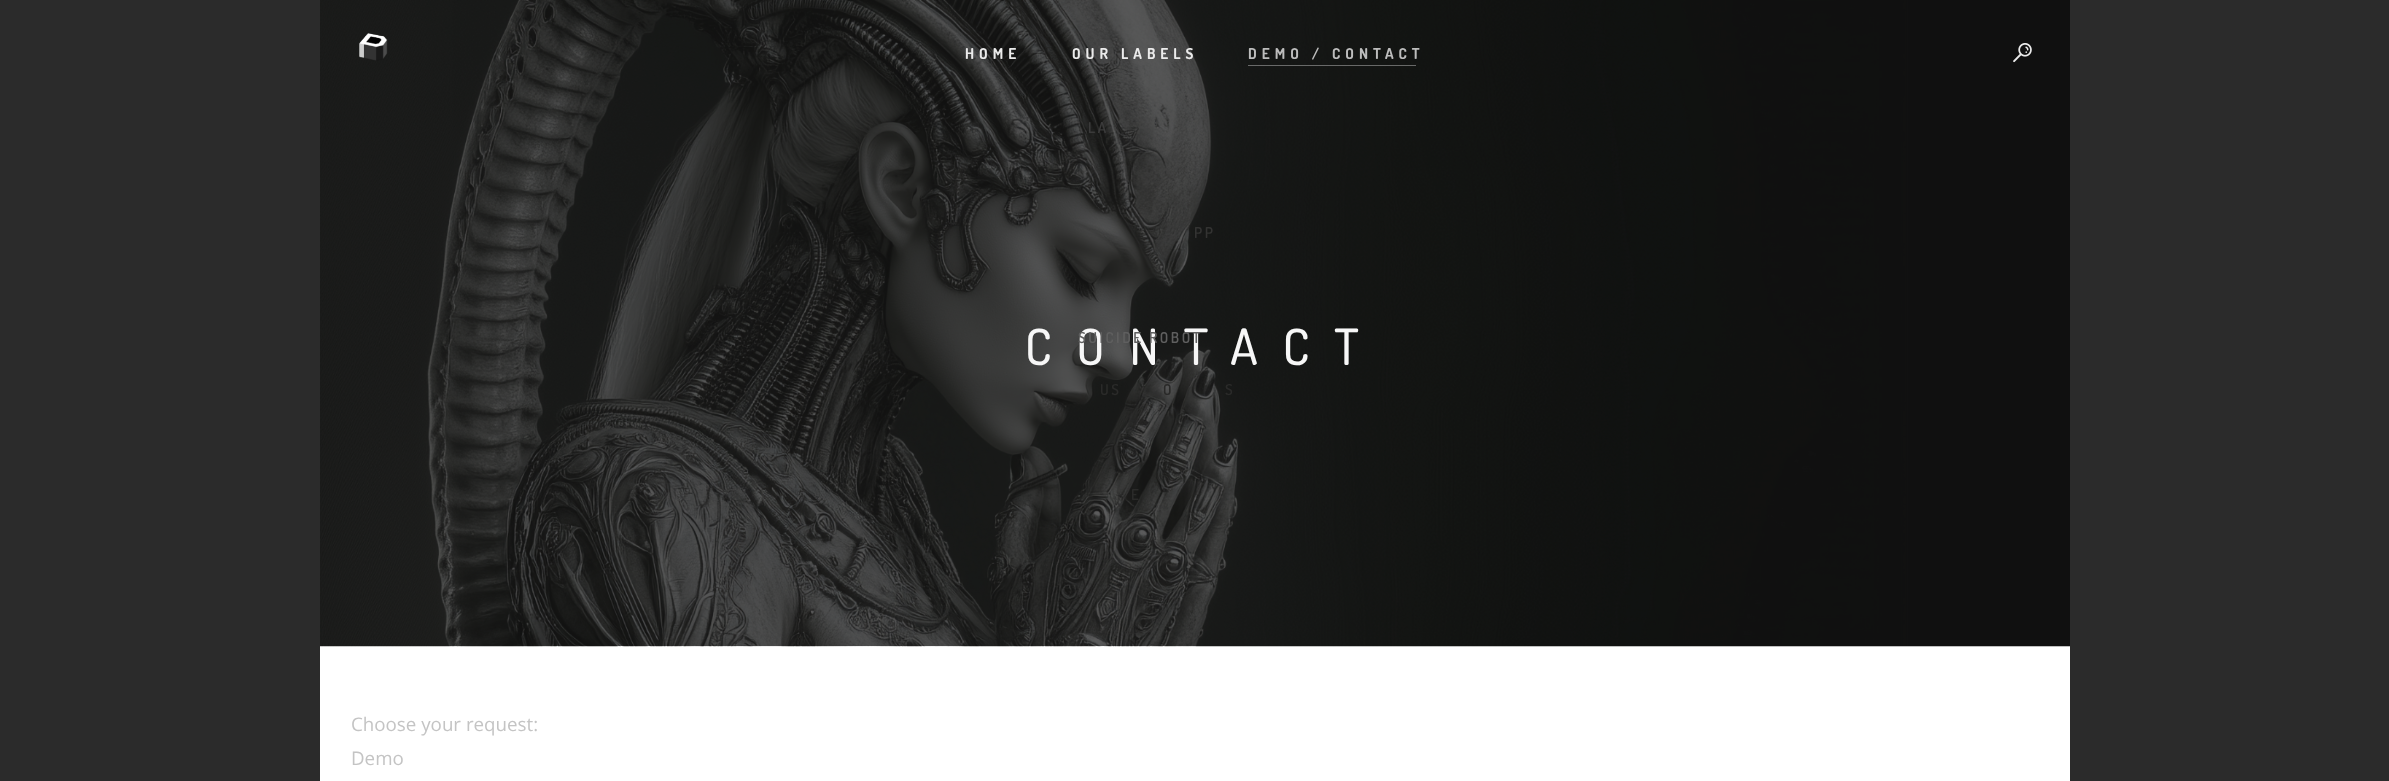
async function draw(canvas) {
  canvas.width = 2389;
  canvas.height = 781;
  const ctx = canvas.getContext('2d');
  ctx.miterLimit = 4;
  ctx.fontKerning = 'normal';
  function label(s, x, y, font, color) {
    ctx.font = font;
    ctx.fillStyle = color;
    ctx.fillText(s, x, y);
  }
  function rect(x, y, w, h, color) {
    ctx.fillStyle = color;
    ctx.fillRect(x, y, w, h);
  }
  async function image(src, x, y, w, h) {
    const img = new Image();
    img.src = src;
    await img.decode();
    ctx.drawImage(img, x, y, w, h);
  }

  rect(0, 0, 2389, 781, '#2b2b2b');
  rect(320, 646, 1750, 135, '#fff');
  await image('assets/img3.png', 320, 0, 1750, 647);
  await image('assets/img1.png', 359, 33, 29, 28);
  ctx.letterSpacing = '5px';
  label('HOME', 965, 59, 'bold 15px Dosis', '#ebebeb');
  label('OUR LABELS', 1072, 59, 'bold 15px Dosis', '#ebebeb');
  ctx.letterSpacing = '2.5px';
  label('LA', 1088, 133, '600 15px Dosis', '#3a3a3a');
  label('PP', 1194, 238, '600 15px Dosis', '#333332');
  ctx.letterSpacing = '25px';
  label('CONTACT', 1025, 365, '500 50px Dosis', '#f7f7f7');
  ctx.letterSpacing = '2.5px';
  label('SUICIDE ROBOT', 1078, 343, '600 15px Dosis', '#5f5f5f');
  label('US', 1100, 395, '600 15px Dosis', '#2a2a29');
  label('O', 1163, 395, '600 15px Dosis', '#2a2a29');
  label('S', 1225, 395, '600 15px Dosis', '#2a2a29');
  label('E', 1131, 500, '600 15px Dosis', '#2a2a29');
  ctx.letterSpacing = '5px';
  label('DEMO / CONTACT', 1248, 59, 'bold 15px Dosis', '#bdbdbd');
  rect(1248, 65, 168, 1, '#bdbdbd80');
  await image('assets/img2.png', 2013, 43, 19, 20);
  ctx.letterSpacing = '0px';
  label('Choose your request:', 351, 731, '18.75px Open Sans', '#c4c4c4');
  label('Demo', 351, 765, '18.75px Open Sans', '#c4c4c4');
}

draw(document.querySelector('canvas'));
